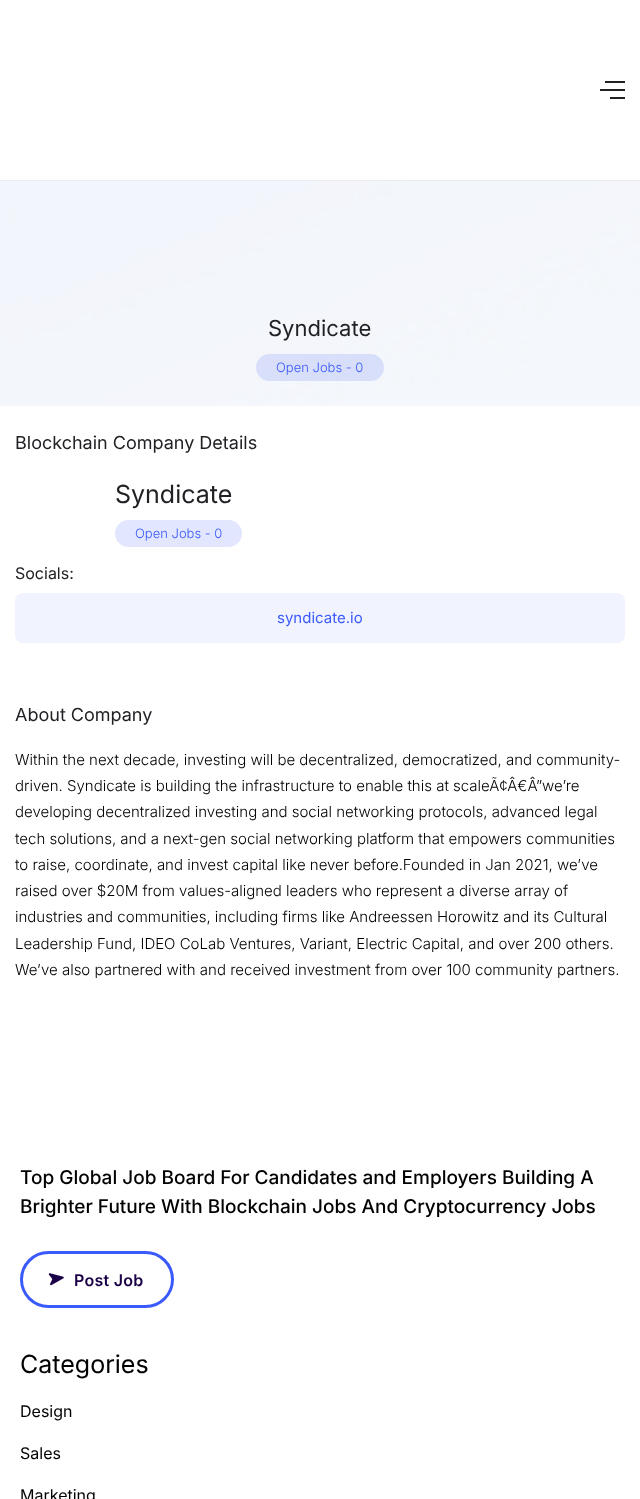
async function draw(canvas) {
  canvas.width = 640;
  canvas.height = 1499;
  const ctx = canvas.getContext('2d');
  ctx.miterLimit = 4;
  ctx.fontKerning = 'normal';
  function label(s, x, y, font, color) {
    ctx.font = font;
    ctx.fillStyle = color;
    ctx.fillText(s, x, y);
  }
  function rect(x, y, w, h, color) {
    ctx.fillStyle = color;
    ctx.fillRect(x, y, w, h);
  }
  function roundedRect(x, y, w, h, r, color) {
    ctx.fillStyle = color;
    ctx.beginPath();
    ctx.roundRect(x, y, w, h, r);
    ctx.fill();
  }
  async function image(src, x, y, w, h) {
    const img = new Image();
    img.src = src;
    await img.decode();
    ctx.drawImage(img, x, y, w, h);
  }

  rect(0, 0, 640, 1499, '#fff');
  rect(0, 180, 640, 1, '#ecedf2');
  rect(605, 81, 20, 2, '#202124');
  rect(600, 89, 25, 2, '#202124');
  rect(610, 97, 15, 2, '#202124');
  await image('assets/img1.png', 0, 181, 640, 225);
  label('Syndicate', 268, 336, '22px Inter', '#202124');
  roundedRect(256, 354, 128, 27, 13.5, '#3b5afb26');
  label('Open Jobs - 0', 276, 372, '300 13px Inter', '#3b5afb');
  label('Blockchain Company Details', 15, 449, '18px Inter', '#202124');
  label('Syndicate', 115, 503, '25px Inter', '#202124');
  roundedRect(115, 520, 127, 27, 13.5, '#e2e6fe');
  label('Open Jobs - 0', 135, 538, '300 13px Inter', '#3b5afb');
  label('Socials:', 15, 579, '16px Inter', '#202124');
  roundedRect(15, 593, 610, 50, 8, '#f1f3ff');
  label('syndicate.io', 277, 623, '15px Inter', '#3b5afb');
  label('About Company', 15, 721, '18px Inter', '#202124');
  label('Within the next decade, investing will be decentralized, democratized, and community-', 15, 765, '300 15px Inter', '#000');
  label('driven. Syndicate is building the infrastructure to enable this at scaleÃ¢Â€Â”we’re', 15, 791, '300 15px Inter', '#000');
  label('developing decentralized investing and social networking protocols, advanced legal', 15, 817, '300 15px Inter', '#000');
  label('tech solutions, and a next-gen social networking platform that empowers communities', 15, 844, '300 15px Inter', '#000');
  label('to raise, coordinate, and invest capital like never before.Founded in Jan 2021, we’ve', 15, 870, '300 15px Inter', '#000');
  label('raised over $20M from values-aligned leaders who represent a diverse array of', 15, 896, '300 15px Inter', '#000');
  label('industries and communities, including firms like Andreessen Horowitz and its Cultural', 15, 922, '300 15px Inter', '#000');
  label('Leadership Fund, IDEO CoLab Ventures, Variant, Electric Capital, and over 200 others.', 15, 949, '300 15px Inter', '#000');
  label('We’ve also partnered with and received investment from over 100 community partners.', 15, 975, '300 15px Inter', '#000');
  label('Top Global Job Board For Candidates and Employers Building A', 20, 1184, '500 19px Inter', '#000');
  label('Brighter Future With Blockchain Jobs And Cryptocurrency Jobs', 20, 1213, '500 19px Inter', '#000');
  ctx.beginPath();
  ctx.roundRect(21.5, 1252.5, 151, 54, 27);
  ctx.strokeStyle = '#3b5afb';
  ctx.lineWidth = 3;
  ctx.stroke();
  await image('assets/img2.png', 48, 1273, 16, 13);
  ctx.letterSpacing = '0.25px';
  label('Post Job', 74, 1286, '600 16px Inter', '#1a0147');
  ctx.letterSpacing = '0px';
  label('Categories', 20, 1373, '25px Inter', '#000');
  label('Design', 20, 1417, '16px Inter', '#000');
  label('Sales', 20, 1459, '16px Inter', '#000');
  label('Marketing', 20, 1501, '16px Inter', '#000');
}

draw(document.querySelector('canvas'));
